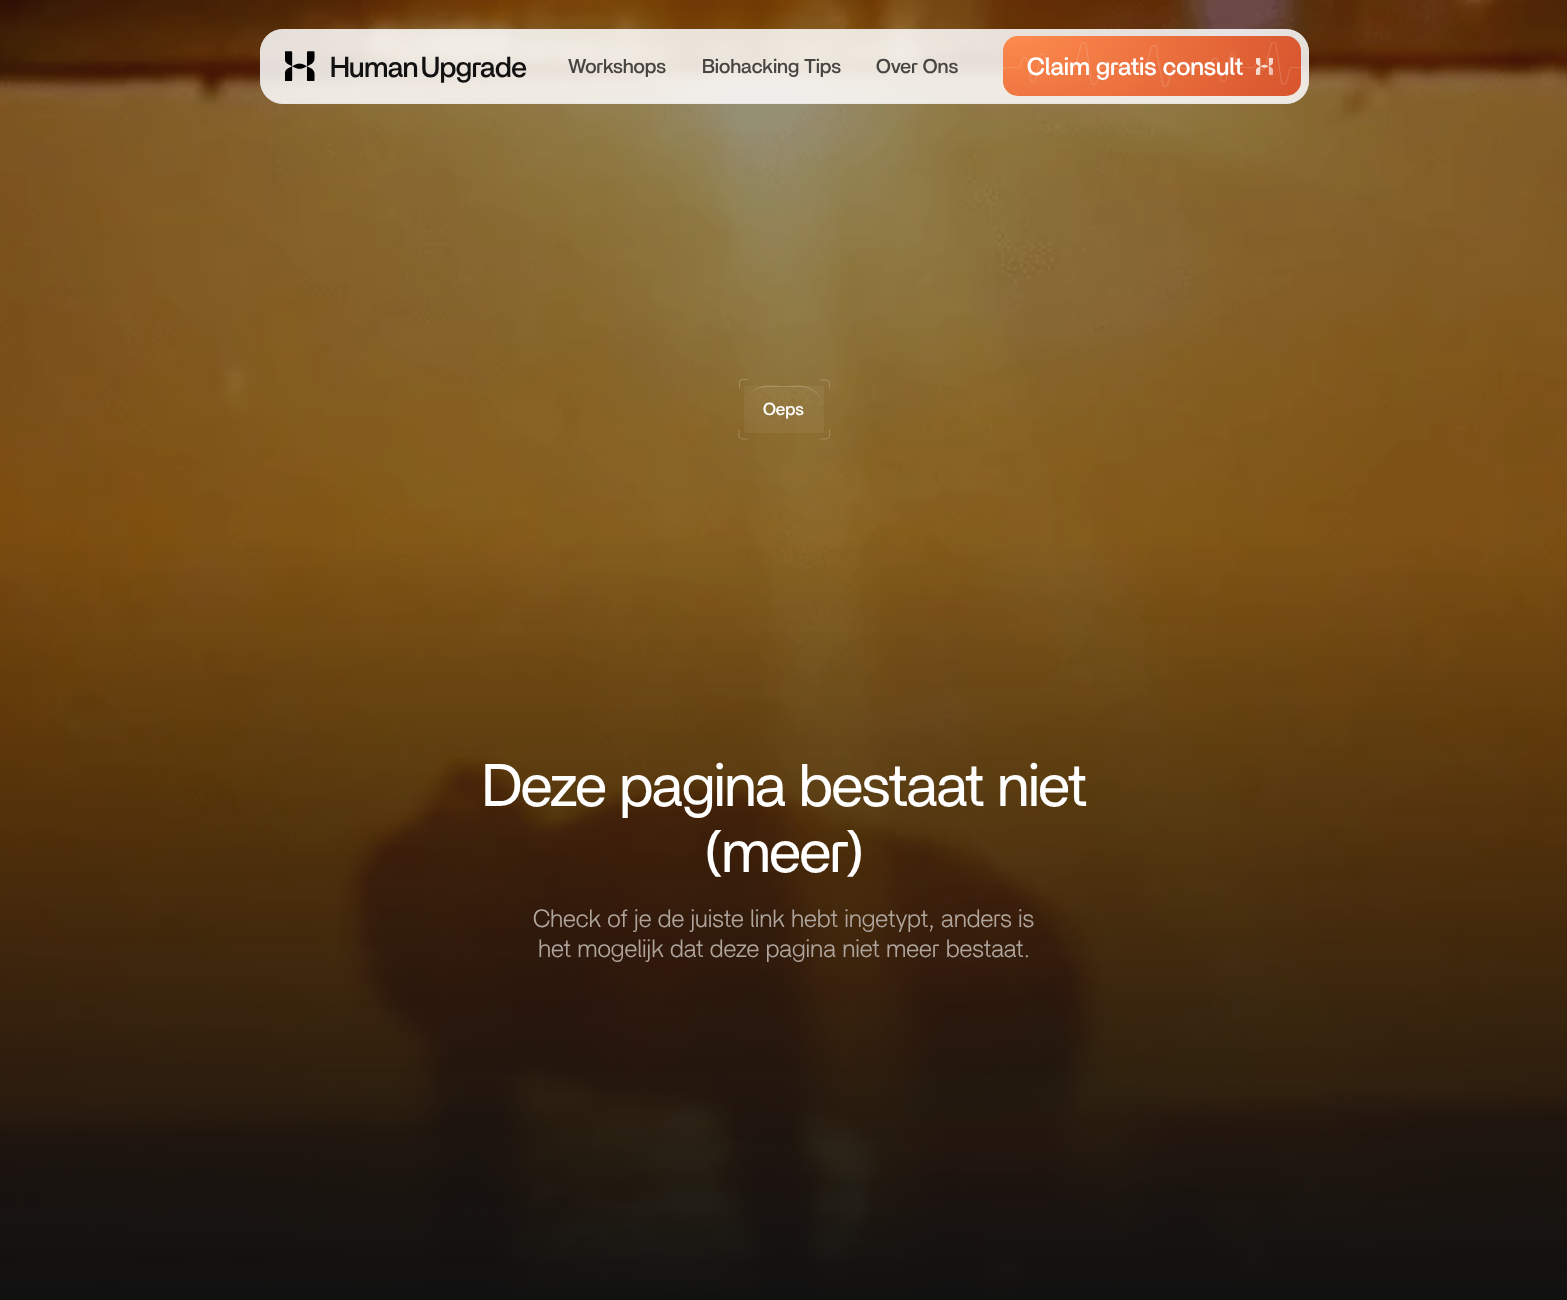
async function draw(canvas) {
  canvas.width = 1567;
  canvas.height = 1300;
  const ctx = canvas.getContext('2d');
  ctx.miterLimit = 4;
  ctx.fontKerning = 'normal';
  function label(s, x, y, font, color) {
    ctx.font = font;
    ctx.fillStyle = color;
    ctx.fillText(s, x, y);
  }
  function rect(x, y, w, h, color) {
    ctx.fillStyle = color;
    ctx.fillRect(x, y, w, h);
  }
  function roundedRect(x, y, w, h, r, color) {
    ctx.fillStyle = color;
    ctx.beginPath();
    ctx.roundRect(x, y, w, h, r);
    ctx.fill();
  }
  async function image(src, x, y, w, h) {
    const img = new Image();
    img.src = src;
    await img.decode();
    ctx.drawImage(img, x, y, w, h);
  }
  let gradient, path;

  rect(0, 0, 1567, 1300, '#fff');
  await image('assets/img3.png', 0, 0, 1567, 1300);
  roundedRect(260, 29, 1049, 75, 23, '#ffffffd9');
  await image('assets/img1.png', 285, 51, 30, 30);
  gradient = ctx.createRadialGradient(1013, 58.3, 0, 1013, 58.3, 299);
  gradient.addColorStop(0, '#ff7f3b');
  gradient.addColorStop(1, '#d54417');
  ctx.fillStyle = gradient;
  ctx.beginPath();
  ctx.roundRect(1003, 36, 298, 60, 15);
  ctx.save();
  ctx.clip();
  ctx.scale(1, 159 / 299);
  ctx.fillRect(0, 0, 1567, 2445);
  ctx.restore();
  ctx.save();
  ctx.beginPath();
  ctx.roundRect(1003, 36, 298, 60, 15);
  ctx.clip();
  path = new Path2D('M923.5 68.5C927.5 68.5 953.5 69.5 955.5 67.5C958.5 64.5 959 45 964 45.5C967.5 45.5 967 52 967 53.5L973 85.5L975 86.5C980 87 979.5 71 983 68.5H1004.5');
  ctx.strokeStyle = '#f7854f';
  ctx.lineWidth = 1.3;
  ctx.stroke(path);
  ctx.restore();
  label('Claim gratis consult', 1027, 75, '500 25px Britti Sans', '#fff');
  path = new Path2D('M1003.5 67.5H1018C1019 67.5 1020 67 1020.5 66L1022.5 59.5C1023.5 57 1026.5 57.5 1027 59.5L1031 80C1031.5 82.5 1035.5 82.5 1036 80L1040 56C1040.5 53 1044 53 1044.5 55.5L1047 65.5C1047 66.5 1048 67.5 1049 67.5H1056');
  ctx.strokeStyle = '#fff9f226';
  ctx.lineWidth = 1.2;
  ctx.stroke(path);
  path = new Path2D('M1056 67.5C1058 67.5 1063.5 68.5 1065 67C1066 65.5 1066 61.5 1068.5 62.5C1070 63 1069.5 72 1074 69C1075 68 1075.5 64.5 1076 63.5L1081.5 43.5L1083.5 42.5C1087 42.5 1086.5 49.5 1087 51L1091.5 83L1093.5 84.5C1099 84.5 1097.5 69 1101.5 67.5H1114.5');
  ctx.stroke(path);
  path = new Path2D('M1113.5 68.5C1117.5 68.5 1143.5 69.5 1145.5 67.5C1148.5 64.5 1149 45 1154 45.5C1157.5 45.5 1157 52 1157 53.5L1163 85.5L1165 86.5C1170 87 1169.5 71 1173 68.5H1194.5');
  ctx.lineWidth = 1.3;
  ctx.stroke(path);
  path = new Path2D('M1193.5 67.5H1208C1209 67.5 1210 67 1210.5 66L1212.5 59.5C1213.5 57 1216.5 57.5 1217 59.5L1221 80C1221.5 82.5 1225.5 82.5 1226 80L1230 56C1230.5 53 1234 53 1234.5 55.5L1237 65.5C1237 66.5 1238 67.5 1239 67.5H1246');
  ctx.lineWidth = 1.2;
  ctx.stroke(path);
  await image('assets/img2.png', 1256, 58, 17, 17);
  ctx.save();
  ctx.beginPath();
  ctx.roundRect(1003, 36, 298, 60, 15);
  ctx.clip();
  path = new Path2D('M1246 67.5C1248 67.5 1253.5 68.5 1255 67C1256 65.5 1256 61.5 1258.5 62.5C1260 63 1259.5 72 1264 69C1265 68 1265.5 64.5 1266 63.5L1271.5 43.5L1273.5 42.5C1277 42.5 1276.5 49.5 1277 51L1281.5 83L1283.5 84.5C1289 84.5 1287.5 69 1291.5 67.5H1304.5');
  ctx.stroke(path);
  ctx.restore();
  ctx.fillStyle = '#ffffff1a';
  path = new Path2D('M1018 36H1286C1294 36 1301 43 1301 51V81C1301 89 1294 96 1286 96H1018C1010 96 1003 89 1003 81V51C1003 43 1010 36 1018 36Z');
  ctx.fill(path);
  ctx.beginPath();
  ctx.roundRect(260.5, 29.5, 1048, 74, 22.5);
  ctx.strokeStyle = '#e3e3e399';
  ctx.lineWidth = 1;
  ctx.stroke();
  ctx.letterSpacing = '-0.5px';
  label('Human', 330, 77, '500 29px Britti Sans', '#111');
  label('Upgrade', 421, 77, '500 29px Britti Sans', '#111');
  ctx.letterSpacing = '0px';
  label('Workshops', 568, 73, '500 20px Britti Sans', '#474542');
  label('Biohacking Tips', 702, 73, '500 20px Britti Sans', '#474542');
  label('Over Ons', 876, 73, '500 20px Britti Sans', '#474542');
  rect(744, 386, 80, 47, '#ffffff0d');
  ctx.fillStyle = '#ffffff2e';
  path = new Path2D('M767 387H801C813 387 824 398 824 410C824 399 816 389 805 386C798 385 791 386 784 386C777 386 770 385 763 386C752 389 744 399 744 410C744 398 754 387 767 387Z');
  ctx.fill(path);
  path = new Path2D('M748 379.5C739 379.5 739.5 378.5 739.5 388');
  ctx.strokeStyle = '#ffffff4d';
  ctx.lineWidth = 0.7;
  ctx.lineCap = 'round';
  ctx.lineJoin = 'round';
  ctx.stroke(path);
  path = new Path2D('M829.5 388.5C829.5 379.5 830 380 820.5 380');
  ctx.stroke(path);
  path = new Path2D('M739 430C739 439.5 738 439 747.5 439');
  ctx.strokeStyle = '#ab946a';
  ctx.stroke(path);
  path = new Path2D('M820.5 439C830 439 829.5 439.5 829.5 430');
  ctx.strokeStyle = '#af996e';
  ctx.stroke(path);
  label('Oeps', 763, 415, '500 17.5px Britti Sans', '#fff');
  ctx.letterSpacing = '-1.2px';
  label('Deze pagina bestaat niet', 482, 806, '60px Britti Sans', '#fff');
  label('(meer)', 701, 872, '60px Britti Sans', '#fff');
  ctx.letterSpacing = '0px';
  label('Check of je de juiste link hebt ingetypt, anders is', 533, 927, '300 25px Britti Sans', '#afa59d');
  label('het mogelijk dat deze pagina niet meer bestaat.', 538, 957, '300 25px Britti Sans', '#afa59d');
}

draw(document.querySelector('canvas'));
